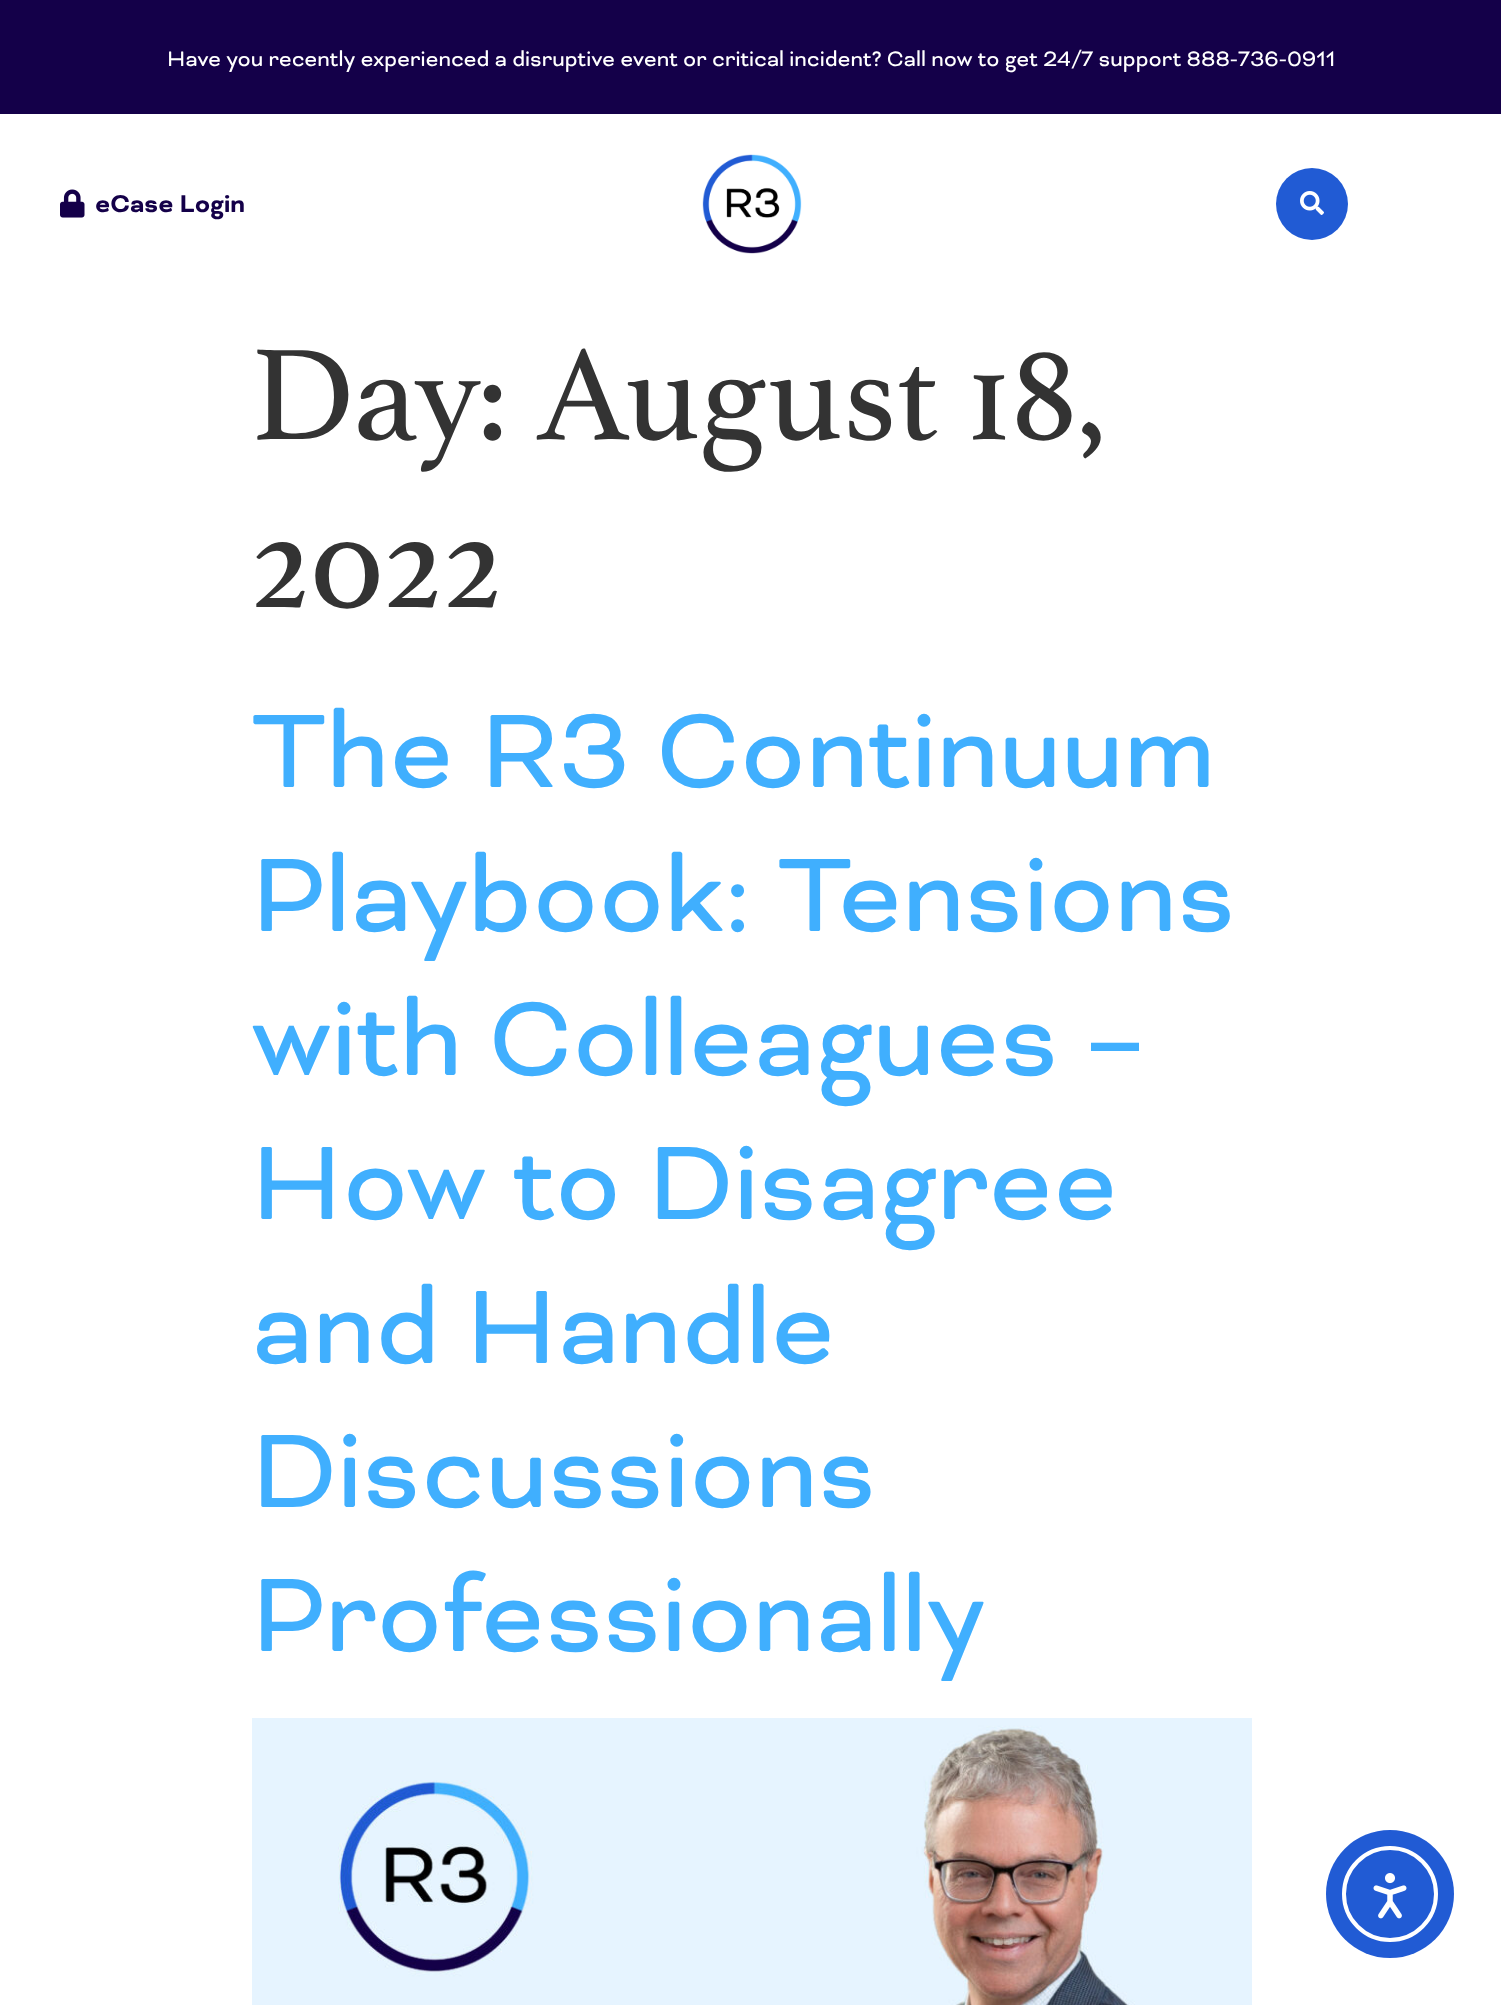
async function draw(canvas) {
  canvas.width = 1501;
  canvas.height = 2005;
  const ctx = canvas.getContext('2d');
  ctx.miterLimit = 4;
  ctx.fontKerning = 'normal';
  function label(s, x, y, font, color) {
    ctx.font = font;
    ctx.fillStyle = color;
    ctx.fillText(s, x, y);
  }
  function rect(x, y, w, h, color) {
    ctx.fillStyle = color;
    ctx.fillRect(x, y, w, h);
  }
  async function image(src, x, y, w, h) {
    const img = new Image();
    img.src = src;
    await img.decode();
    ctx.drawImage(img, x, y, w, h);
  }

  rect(0, 0, 1501, 2005, '#fff');
  rect(0, 0, 1501, 114, '#140049');
  label('Have you recently experienced a disruptive event or critical incident? Call now to get 24/7 support 888-736-0911', 167, 66, '24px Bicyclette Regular', '#fff');
  await image('assets/img1.png', 60, 189, 25, 29);
  label('eCase Login', 95, 212, 'bold 28px Bicyclette Regular', '#140049');
  await image('assets/img2.png', 702, 154, 100, 100);
  ctx.fillStyle = '#215bd4';
  ctx.beginPath();
  ctx.arc(1312, 204, 36, 0, 2 * Math.PI);
  ctx.fill();
  await image('assets/img3.png', 1300, 191, 24, 24);
  label('Day: August 18,', 251, 439, '140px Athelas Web', '#333');
  label('2022', 251, 607, '140px Athelas Web', '#333');
  label('The R3 Continuum', 251, 787, '120px Bicyclette Regular', '#40affe');
  label('Playbook: Tensions', 251, 931, '120px Bicyclette Regular', '#40affe');
  label('with Colleagues –', 251, 1075, '120px Bicyclette Regular', '#40affe');
  label('How to Disagree', 251, 1219, '120px Bicyclette Regular', '#40affe');
  label('and Handle', 251, 1363, '120px Bicyclette Regular', '#40affe');
  label('Discussions', 251, 1507, '120px Bicyclette Regular', '#40affe');
  label('Professionally', 251, 1651, '120px Bicyclette Regular', '#40affe');
  await image('assets/img4.png', 252, 1718, 1000, 287);
  ctx.fillStyle = '#215bd4';
  ctx.beginPath();
  ctx.arc(1390, 1894, 64, 0, 2 * Math.PI);
  ctx.fill();
  ctx.beginPath();
  ctx.arc(1390, 1894, 46, 0, 2 * Math.PI);
  ctx.strokeStyle = '#fff';
  ctx.lineWidth = 4;
  ctx.stroke();
  await image('assets/img5.png', 1373, 1873, 34, 46);
}

draw(document.querySelector('canvas'));
